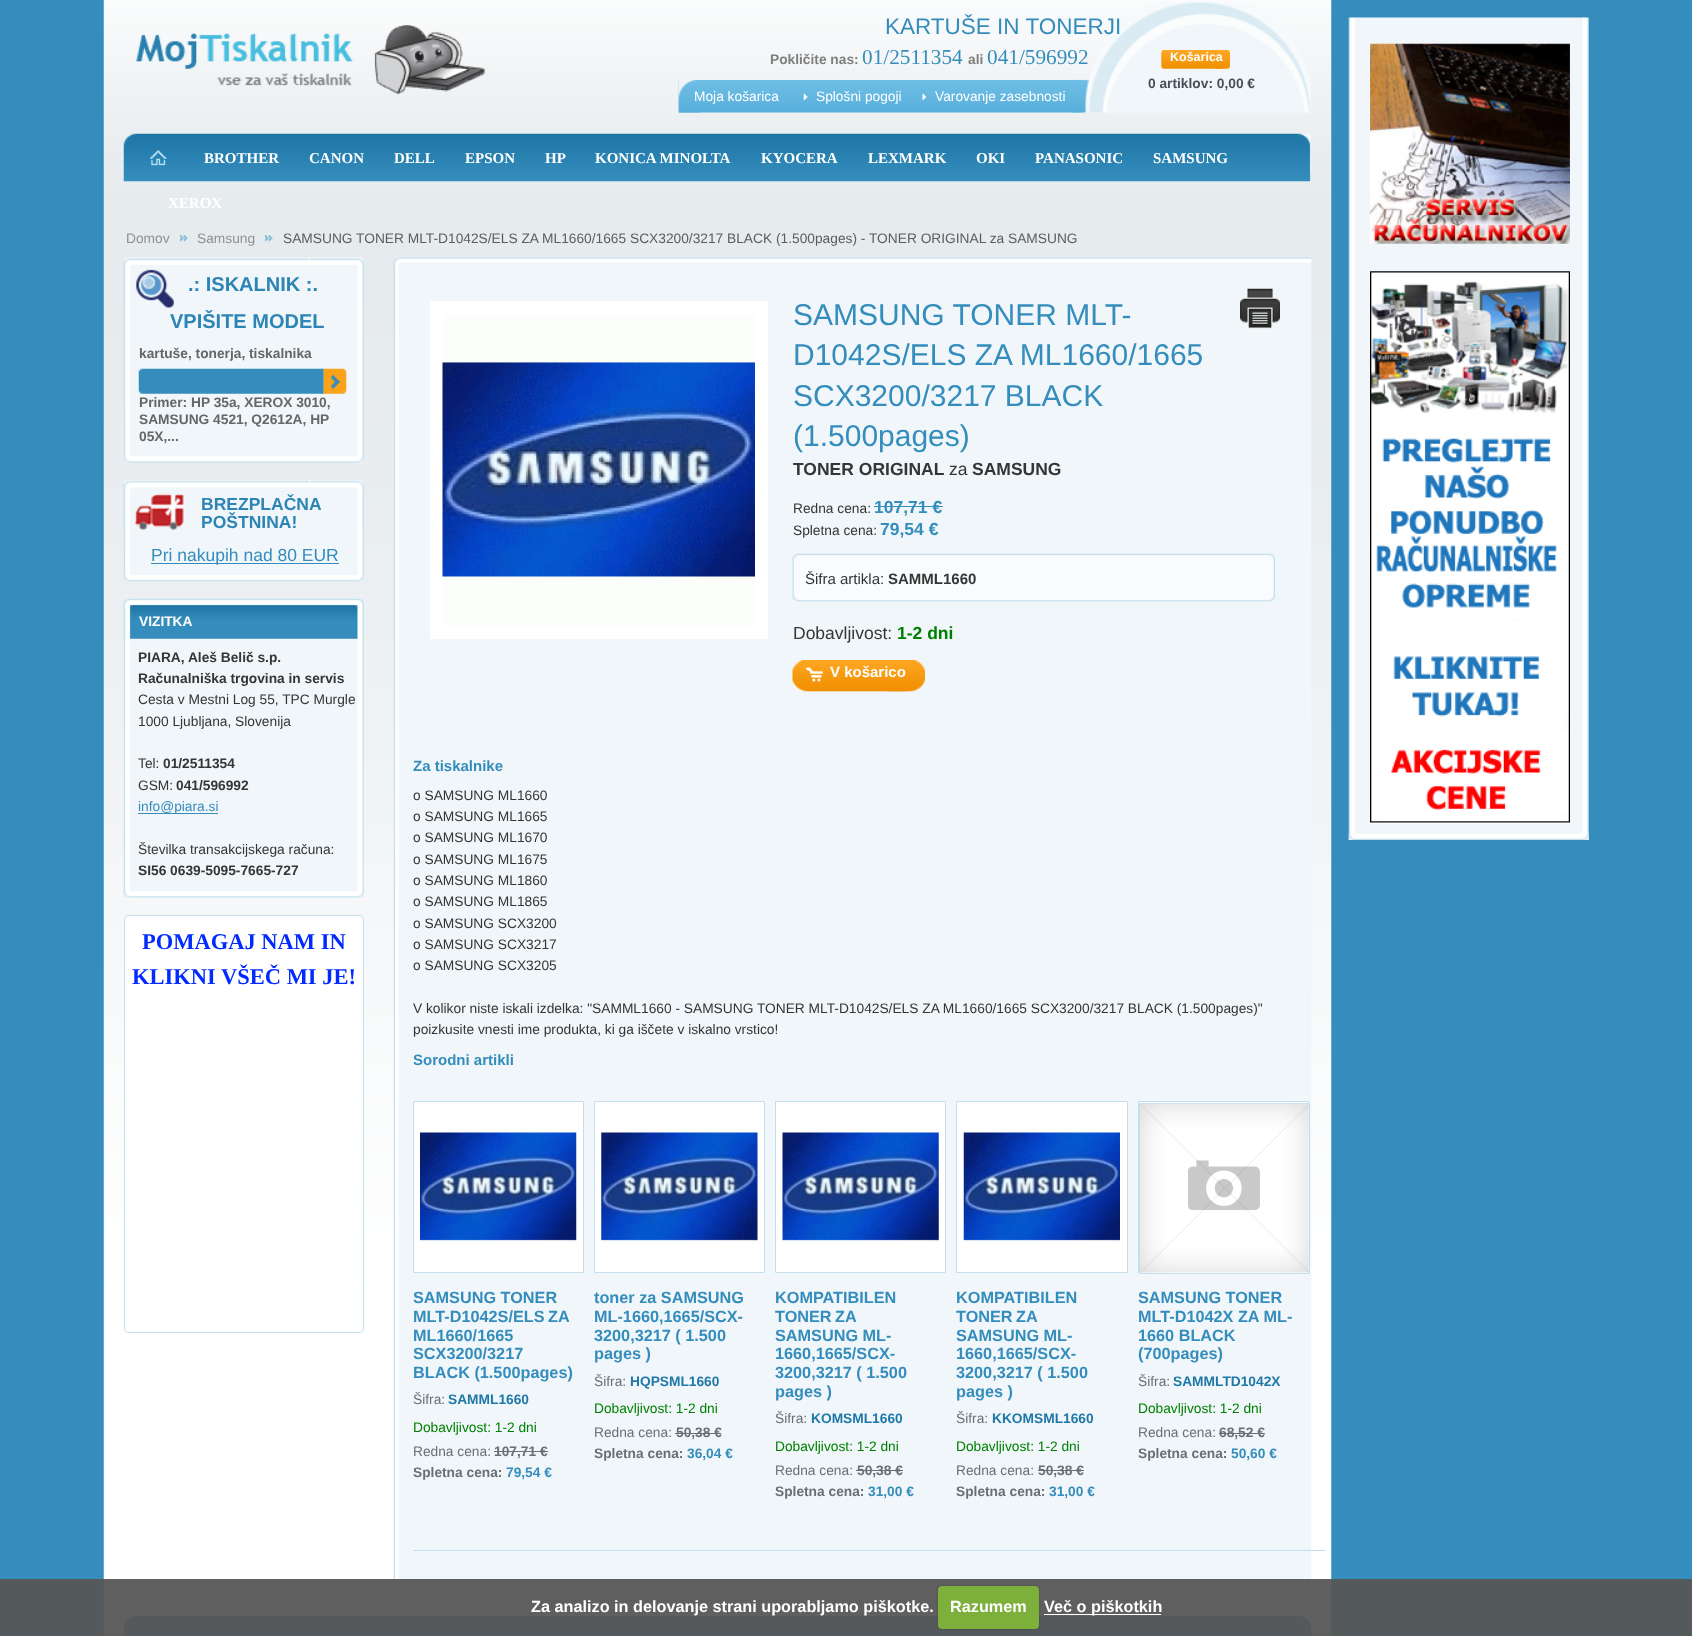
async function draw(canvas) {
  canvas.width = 1692;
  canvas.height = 1636;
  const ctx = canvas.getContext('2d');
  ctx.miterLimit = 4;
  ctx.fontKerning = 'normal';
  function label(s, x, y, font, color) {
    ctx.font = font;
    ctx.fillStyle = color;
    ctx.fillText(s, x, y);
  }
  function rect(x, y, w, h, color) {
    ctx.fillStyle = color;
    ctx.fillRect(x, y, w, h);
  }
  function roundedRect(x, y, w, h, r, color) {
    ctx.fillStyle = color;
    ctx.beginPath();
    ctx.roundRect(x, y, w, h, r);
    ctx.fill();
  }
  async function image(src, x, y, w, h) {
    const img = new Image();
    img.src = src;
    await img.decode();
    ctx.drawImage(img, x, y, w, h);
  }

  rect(0, 0, 1692, 1636, '#348dbc');
  await image('assets/img1.png', 103, 0, 1229, 1636);
  await image('assets/img2.png', 136, 25, 349, 69);
  await image('assets/img3.png', 1072, 2, 239, 111);
  label('KARTUŠE IN TONERJI', 885, 34, '22.5px Liberation Sans', '#348dbc');
  label('Pokličite nas:', 770, 64, 'bold 13.75px Liberation Sans', '#7f7f7f');
  label('01/2511354', 862, 64, '21.25px Liberation Serif', '#348dbc');
  label('ali', 968, 64, 'bold 13.75px Liberation Sans', '#7f7f7f');
  label('041/596992', 987, 64, '21.25px Liberation Serif', '#348dbc');
  await image('assets/img4.png', 1215, 50, 15, 19);
  await image('assets/img5.png', 1161, 50, 62, 19);
  label('Košarica', 1170, 61, 'bold 12.5px Liberation Sans', '#fff');
  label('0 artiklov: 0,00 €', 1148, 88, 'bold 13.75px Liberation Sans', '#4a4e59');
  await image('assets/img6.png', 678, 80, 404, 33);
  await image('assets/img7.png', 678, 80, 22, 33);
  label('Moja košarica', 694, 101, '13.75px Liberation Sans', '#fff');
  await image('assets/img8.png', 803, 93, 5, 7);
  label('Splošni pogoji', 816, 101, '13.75px Liberation Sans', '#fff');
  await image('assets/img9.png', 922, 93, 5, 7);
  label('Varovanje zasebnosti', 935, 101, '13.75px Liberation Sans', '#fff');
  await image('assets/img10.png', 1348, 17, 241, 823);
  await image('assets/img11.png', 1348, 832, 241, 8);
  await image('assets/img12.png', 1370, 43, 200, 201);
  await image('assets/img13.png', 1370, 271, 200, 553);
  await image('assets/img14.png', 123, 133, 1189, 49);
  await image('assets/img15.png', 149, 149, 18, 17);
  label('BROTHER', 204, 163, 'bold 15px Liberation Serif', '#fff');
  label('CANON', 309, 163, 'bold 15px Liberation Serif', '#fff');
  label('DELL', 394, 163, 'bold 15px Liberation Serif', '#fff');
  label('EPSON', 465, 163, 'bold 15px Liberation Serif', '#fff');
  label('HP', 545, 163, 'bold 15px Liberation Serif', '#fff');
  label('KONICA MINOLTA', 595, 163, 'bold 15px Liberation Serif', '#fff');
  label('KYOCERA', 761, 163, 'bold 15px Liberation Serif', '#fff');
  label('LEXMARK', 868, 163, 'bold 15px Liberation Serif', '#fff');
  label('OKI', 976, 163, 'bold 15px Liberation Serif', '#fff');
  label('PANASONIC', 1035, 163, 'bold 15px Liberation Serif', '#fff');
  label('SAMSUNG', 1153, 163, 'bold 15px Liberation Serif', '#fff');
  label('XEROX', 168, 208, 'bold 15px Liberation Serif', '#fff');
  label('Domov', 126, 243, '13.75px Liberation Sans', '#909090');
  await image('assets/img16.png', 180, 235, 8, 7);
  label('Samsung', 197, 243, '13.75px Liberation Sans', '#909090');
  await image('assets/img17.png', 265, 235, 8, 7);
  label('SAMSUNG TONER MLT-D1042S/ELS ZA ML1660/1665 SCX3200/3217 BLACK (1.500pages) - TONER ORIGINAL za SAMSUNG', 283, 243, '13.75px Liberation Sans', '#5d5d5d');
  await image('assets/img18.png', 123, 257, 241, 206);
  await image('assets/img19.png', 123, 257, 241, 51);
  label('.: ISKALNIK :.', 188, 291, 'bold 20px Liberation Sans', '#2c85b4');
  label('VPIŠITE MODEL', 170, 328, 'bold 20px Liberation Sans', '#2c85b4');
  await image('assets/img20.png', 123, 455, 241, 8);
  label('kartuše, tonerja, tiskalnika', 139, 358, 'bold 13.75px Liberation Sans', '#666');
  await image('assets/img21.png', 138, 368, 186, 26);
  await image('assets/img22.png', 323, 368, 24, 26);
  label('Primer: HP 35a, XEROX 3010,', 139, 407, 'bold 13.75px Liberation Sans', '#666');
  label('SAMSUNG 4521, Q2612A, HP', 139, 424, 'bold 13.75px Liberation Sans', '#666');
  label('05X,...', 139, 441, 'bold 13.75px Liberation Sans', '#666');
  await image('assets/img23.png', 123, 480, 241, 102);
  await image('assets/img24.png', 123, 480, 241, 50);
  label('BREZPLAČNA', 201, 510, 'bold 17.5px Liberation Sans', '#2c85b4');
  label('POŠTNINA!', 201, 528, 'bold 17.5px Liberation Sans', '#2c85b4');
  await image('assets/img25.png', 123, 574, 241, 8);
  rect(151, 563, 188, 1, '#348dbc');
  label('Pri nakupih nad 80 EUR', 151, 561, '17.5px Liberation Sans', '#348dbc');
  await image('assets/img26.png', 123, 598, 241, 300);
  await image('assets/img27.png', 123, 598, 241, 41);
  label('VIZITKA', 139, 626, 'bold 13.75px Liberation Sans', '#fff');
  await image('assets/img28.png', 123, 890, 241, 8);
  label('PIARA, Aleš Belič s.p.', 138, 662, 'bold 13.75px Liberation Sans', '#353535');
  label('Računalniška trgovina in servis', 138, 683, 'bold 13.75px Liberation Sans', '#353535');
  label('Cesta v Mestni Log 55, TPC Murgle', 138, 704, '13.75px Liberation Sans', '#353535');
  label('1000 Ljubljana, Slovenija', 138, 726, '13.75px Liberation Sans', '#353535');
  label('Tel:', 138, 768, '13.75px Liberation Sans', '#353535');
  label('01/2511354', 163, 768, 'bold 13.75px Liberation Sans', '#353535');
  label('GSM:', 138, 790, '13.75px Liberation Sans', '#353535');
  label('041/596992', 176, 790, 'bold 13.75px Liberation Sans', '#353535');
  rect(138, 813, 80, 1, '#348dbc');
  label('info@piara.si', 138, 811, '13.75px Liberation Sans', '#348dbc');
  label('Številka transakcijskega računa:', 138, 854, '13.75px Liberation Sans', '#353535');
  label('SI56 0639-5095-7665-727', 138, 875, 'bold 13.75px Liberation Sans', '#353535');
  ctx.fillStyle = '#fff';
  ctx.beginPath();
  ctx.roundRect(124.5, 915.5, 239, 417, 4.5);
  ctx.fill();
  ctx.strokeStyle = '#c3dfee';
  ctx.stroke();
  label('POMAGAJ NAM IN', 142, 949, 'bold 22.5px Liberation Serif', '#002aff');
  label('KLIKNI VŠEČ MI JE!', 132, 984, 'bold 22.5px Liberation Serif', '#002aff');
  await image('assets/img29.png', 393, 257, 919, 1345);
  await image('assets/img30.png', 393, 257, 919, 13);
  ctx.strokeStyle = '#fff';
  ctx.lineWidth = 13;
  ctx.strokeRect(436.5, 307.5, 325, 325);
  await image('assets/img31.png', 442, 314, 313, 312);
  label('SAMSUNG TONER MLT-', 793, 325, '30px Liberation Sans', '#348dbc');
  label('D1042S/ELS ZA ML1660/1665', 793, 365, '30px Liberation Sans', '#348dbc');
  label('SCX3200/3217 BLACK', 793, 406, '30px Liberation Sans', '#348dbc');
  label('(1.500pages)', 793, 446, '30px Liberation Sans', '#348dbc');
  await image('assets/img32.png', 1240, 288, 40, 41);
  label('TONER ORIGINAL', 793, 475, 'bold 17.5px Liberation Sans', '#353535');
  label('za', 949, 475, '17.5px Liberation Sans', '#353535');
  label('SAMSUNG', 972, 475, 'bold 17.5px Liberation Sans', '#353535');
  label('Redna cena:', 793, 513, '13.75px Liberation Sans', '#353535');
  label('107,71 €', 874, 513, 'bold 17.5px Liberation Sans', '#348dbc');
  rect(874, 506, 69, 1, '#348dbc');
  label('Spletna cena:', 793, 535, '13.75px Liberation Sans', '#353535');
  label('79,54 €', 880, 535, 'bold 17.5px Liberation Sans', '#348dbc');
  await image('assets/img33.png', 792, 553, 483, 49);
  label('Šifra artikla:', 805, 584, '15px Liberation Sans', '#353535');
  label('SAMML1660', 888, 584, 'bold 15px Liberation Sans', '#353535');
  label('Dobavljivost:', 793, 639, '17.5px Liberation Sans', '#353535');
  label('1-2 dni', 897, 639, 'bold 17.5px Liberation Sans', '#008000');
  await image('assets/img34.png', 887, 660, 38, 32);
  await image('assets/img35.png', 792, 660, 115, 32);
  label('V košarico', 830, 677, 'bold 15px Liberation Sans', '#fff');
  await image('assets/img36.png', 393, 1589, 919, 13);
  label('Za tiskalnike', 413, 771, 'bold 15px Liberation Sans', '#348dbc');
  label('o SAMSUNG ML1660', 413, 800, '13.75px Liberation Sans', '#353535');
  label('o SAMSUNG ML1665', 413, 821, '13.75px Liberation Sans', '#353535');
  label('o SAMSUNG ML1670', 413, 842, '13.75px Liberation Sans', '#353535');
  label('o SAMSUNG ML1675', 413, 864, '13.75px Liberation Sans', '#353535');
  label('o SAMSUNG ML1860', 413, 885, '13.75px Liberation Sans', '#353535');
  label('o SAMSUNG ML1865', 413, 906, '13.75px Liberation Sans', '#353535');
  label('o SAMSUNG SCX3200', 413, 928, '13.75px Liberation Sans', '#353535');
  label('o SAMSUNG SCX3217', 413, 949, '13.75px Liberation Sans', '#353535');
  label('o SAMSUNG SCX3205', 413, 970, '13.75px Liberation Sans', '#353535');
  label('V kolikor niste iskali izdelka: "SAMML1660 - SAMSUNG TONER MLT-D1042S/ELS ZA ML1660/1665 SCX3200/3217 BLACK (1.500pages)"', 413, 1013, '13.75px Liberation Sans', '#353535');
  label('poizkusite vnesti ime produkta, ki ga iščete v iskalno vrstico!', 413, 1034, '13.75px Liberation Sans', '#353535');
  label('Sorodni artikli', 413, 1065, 'bold 15px Liberation Sans', '#348dbc');
  rect(413, 1550, 912, 1, '#c3dfee');
  ctx.fillStyle = '#fff';
  ctx.beginPath();
  ctx.rect(413.5, 1101.5, 170, 171);
  ctx.fill();
  ctx.strokeStyle = '#c3dfee';
  ctx.lineWidth = 1;
  ctx.stroke();
  await image('assets/img37.png', 420, 1132, 157, 110);
  label('SAMSUNG TONER', 413, 1303, 'bold 16.25px Liberation Sans', '#348dbc');
  ctx.wordSpacing = '-1px';
  label('MLT-D1042S/ELS ZA', 413, 1322, 'bold 16.25px Liberation Sans', '#348dbc');
  ctx.wordSpacing = '0px';
  label('ML1660/1665', 413, 1341, 'bold 16.25px Liberation Sans', '#348dbc');
  label('SCX3200/3217', 413, 1359, 'bold 16.25px Liberation Sans', '#348dbc');
  label('BLACK (1.500pages)', 413, 1378, 'bold 16.25px Liberation Sans', '#348dbc');
  label('Šifra:', 413, 1404, '13.75px Liberation Sans', '#697073');
  label('SAMML1660', 448, 1404, 'bold 13.75px Liberation Sans', '#1f78a7');
  label('Dobavljivost: 1-2 dni', 413, 1432, '13.75px Liberation Sans', '#008000');
  label('Redna cena:', 413, 1456, '13.75px Liberation Sans', '#697073');
  label('107,71 €', 494, 1456, 'bold 13.75px Liberation Sans', '#697073');
  rect(494, 1451, 54, 1, '#697073');
  label('Spletna cena:', 413, 1477, 'bold 13.75px Liberation Sans', '#697073');
  label('79,54 €', 506, 1477, 'bold 13.75px Liberation Sans', '#348dbc');
  ctx.fillStyle = '#fff';
  ctx.beginPath();
  ctx.rect(594.5, 1101.5, 170, 171);
  ctx.fill();
  ctx.stroke();
  await image('assets/img38.png', 601, 1132, 157, 110);
  label('toner za SAMSUNG', 594, 1303, 'bold 16.25px Liberation Sans', '#348dbc');
  label('ML-1660,1665/SCX-', 594, 1322, 'bold 16.25px Liberation Sans', '#348dbc');
  label('3200,3217 ( 1.500', 594, 1341, 'bold 16.25px Liberation Sans', '#348dbc');
  label('pages )', 594, 1359, 'bold 16.25px Liberation Sans', '#348dbc');
  label('Šifra:', 594, 1386, '13.75px Liberation Sans', '#697073');
  label('HQPSML1660', 630, 1386, 'bold 13.75px Liberation Sans', '#1f78a7');
  label('Dobavljivost: 1-2 dni', 594, 1413, '13.75px Liberation Sans', '#008000');
  label('Redna cena:', 594, 1437, '13.75px Liberation Sans', '#697073');
  label('50,38 €', 676, 1437, 'bold 13.75px Liberation Sans', '#697073');
  rect(675, 1433, 46, 1, '#697073');
  label('Spletna cena:', 594, 1458, 'bold 13.75px Liberation Sans', '#697073');
  label('36,04 €', 687, 1458, 'bold 13.75px Liberation Sans', '#348dbc');
  ctx.fillStyle = '#fff';
  ctx.beginPath();
  ctx.rect(775.5, 1101.5, 170, 171);
  ctx.fill();
  ctx.stroke();
  await image('assets/img39.png', 782, 1132, 157, 110);
  label('KOMPATIBILEN', 775, 1303, 'bold 16.25px Liberation Sans', '#348dbc');
  ctx.wordSpacing = '-1px';
  label('TONER ZA', 775, 1322, 'bold 16.25px Liberation Sans', '#348dbc');
  ctx.wordSpacing = '0px';
  label('SAMSUNG ML-', 775, 1341, 'bold 16.25px Liberation Sans', '#348dbc');
  label('1660,1665/SCX-', 775, 1359, 'bold 16.25px Liberation Sans', '#348dbc');
  label('3200,3217 ( 1.500', 775, 1378, 'bold 16.25px Liberation Sans', '#348dbc');
  label('pages )', 775, 1397, 'bold 16.25px Liberation Sans', '#348dbc');
  label('Šifra:', 775, 1423, '13.75px Liberation Sans', '#697073');
  label('KOMSML1660', 811, 1423, 'bold 13.75px Liberation Sans', '#1f78a7');
  label('Dobavljivost: 1-2 dni', 775, 1451, '13.75px Liberation Sans', '#008000');
  label('Redna cena:', 775, 1475, '13.75px Liberation Sans', '#697073');
  label('50,38 €', 857, 1475, 'bold 13.75px Liberation Sans', '#697073');
  rect(856, 1470, 47, 1, '#697073');
  label('Spletna cena:', 775, 1496, 'bold 13.75px Liberation Sans', '#697073');
  label('31,00 €', 868, 1496, 'bold 13.75px Liberation Sans', '#348dbc');
  ctx.fillStyle = '#fff';
  ctx.beginPath();
  ctx.rect(956.5, 1101.5, 171, 171);
  ctx.fill();
  ctx.stroke();
  await image('assets/img40.png', 963, 1132, 157, 110);
  label('KOMPATIBILEN', 956, 1303, 'bold 16.25px Liberation Sans', '#348dbc');
  ctx.wordSpacing = '-1px';
  label('TONER ZA', 956, 1322, 'bold 16.25px Liberation Sans', '#348dbc');
  ctx.wordSpacing = '0px';
  label('SAMSUNG ML-', 956, 1341, 'bold 16.25px Liberation Sans', '#348dbc');
  label('1660,1665/SCX-', 956, 1359, 'bold 16.25px Liberation Sans', '#348dbc');
  label('3200,3217 ( 1.500', 956, 1378, 'bold 16.25px Liberation Sans', '#348dbc');
  label('pages )', 956, 1397, 'bold 16.25px Liberation Sans', '#348dbc');
  label('Šifra:', 956, 1423, '13.75px Liberation Sans', '#697073');
  label('KKOMSML1660', 992, 1423, 'bold 13.75px Liberation Sans', '#1f78a7');
  label('Dobavljivost: 1-2 dni', 956, 1451, '13.75px Liberation Sans', '#008000');
  label('Redna cena:', 956, 1475, '13.75px Liberation Sans', '#697073');
  label('50,38 €', 1038, 1475, 'bold 13.75px Liberation Sans', '#697073');
  rect(1038, 1470, 46, 1, '#697073');
  label('Spletna cena:', 956, 1496, 'bold 13.75px Liberation Sans', '#697073');
  label('31,00 €', 1049, 1496, 'bold 13.75px Liberation Sans', '#348dbc');
  rect(1139, 1102, 169, 1, '#fff');
  ctx.strokeRect(1138.5, 1101.5, 170, 171);
  ctx.beginPath();
  ctx.rect(1139.5, 1103.5, 170, 170);
  ctx.fill();
  ctx.stroke();
  await image('assets/img41.png', 1140, 1103, 169, 170);
  label('SAMSUNG TONER', 1138, 1303, 'bold 16.25px Liberation Sans', '#348dbc');
  label('MLT-D1042X ZA ML-', 1138, 1322, 'bold 16.25px Liberation Sans', '#348dbc');
  label('1660 BLACK', 1138, 1341, 'bold 16.25px Liberation Sans', '#348dbc');
  label('(700pages)', 1138, 1359, 'bold 16.25px Liberation Sans', '#348dbc');
  label('Šifra:', 1138, 1386, '13.75px Liberation Sans', '#697073');
  label('SAMMLTD1042X', 1173, 1386, 'bold 13.75px Liberation Sans', '#1f78a7');
  label('Dobavljivost: 1-2 dni', 1138, 1413, '13.75px Liberation Sans', '#008000');
  label('Redna cena:', 1138, 1437, '13.75px Liberation Sans', '#697073');
  label('68,52 €', 1219, 1437, 'bold 13.75px Liberation Sans', '#697073');
  rect(1219, 1433, 46, 1, '#697073');
  label('Spletna cena:', 1138, 1458, 'bold 13.75px Liberation Sans', '#697073');
  label('50,60 €', 1231, 1458, 'bold 13.75px Liberation Sans', '#348dbc');
  await image('assets/img42.png', 123, 1616, 1189, 20);
  rect(0, 1579, 1692, 57, '#565656f2');
  label('Za analizo in delovanje strani uporabljamo piškotke.', 531, 1612, 'bold 16.25px Liberation Sans', '#fff');
  ctx.fillStyle = '#00000040';
  ctx.filter = 'blur(1px)';
  ctx.beginPath();
  ctx.roundRect(938, 1586, 101, 43, 4);
  ctx.fill();
  ctx.filter = 'none';
  roundedRect(938, 1586, 101, 43, 4, '#7daf3b');
  label('Razumem', 950, 1612, 'bold 16.25px Liberation Sans', '#fff');
  rect(1044, 1614, 117, 1, '#fff');
  label('Več o piškotkih', 1044, 1612, 'bold 16.25px Liberation Sans', '#fff');
}

draw(document.querySelector('canvas'));
